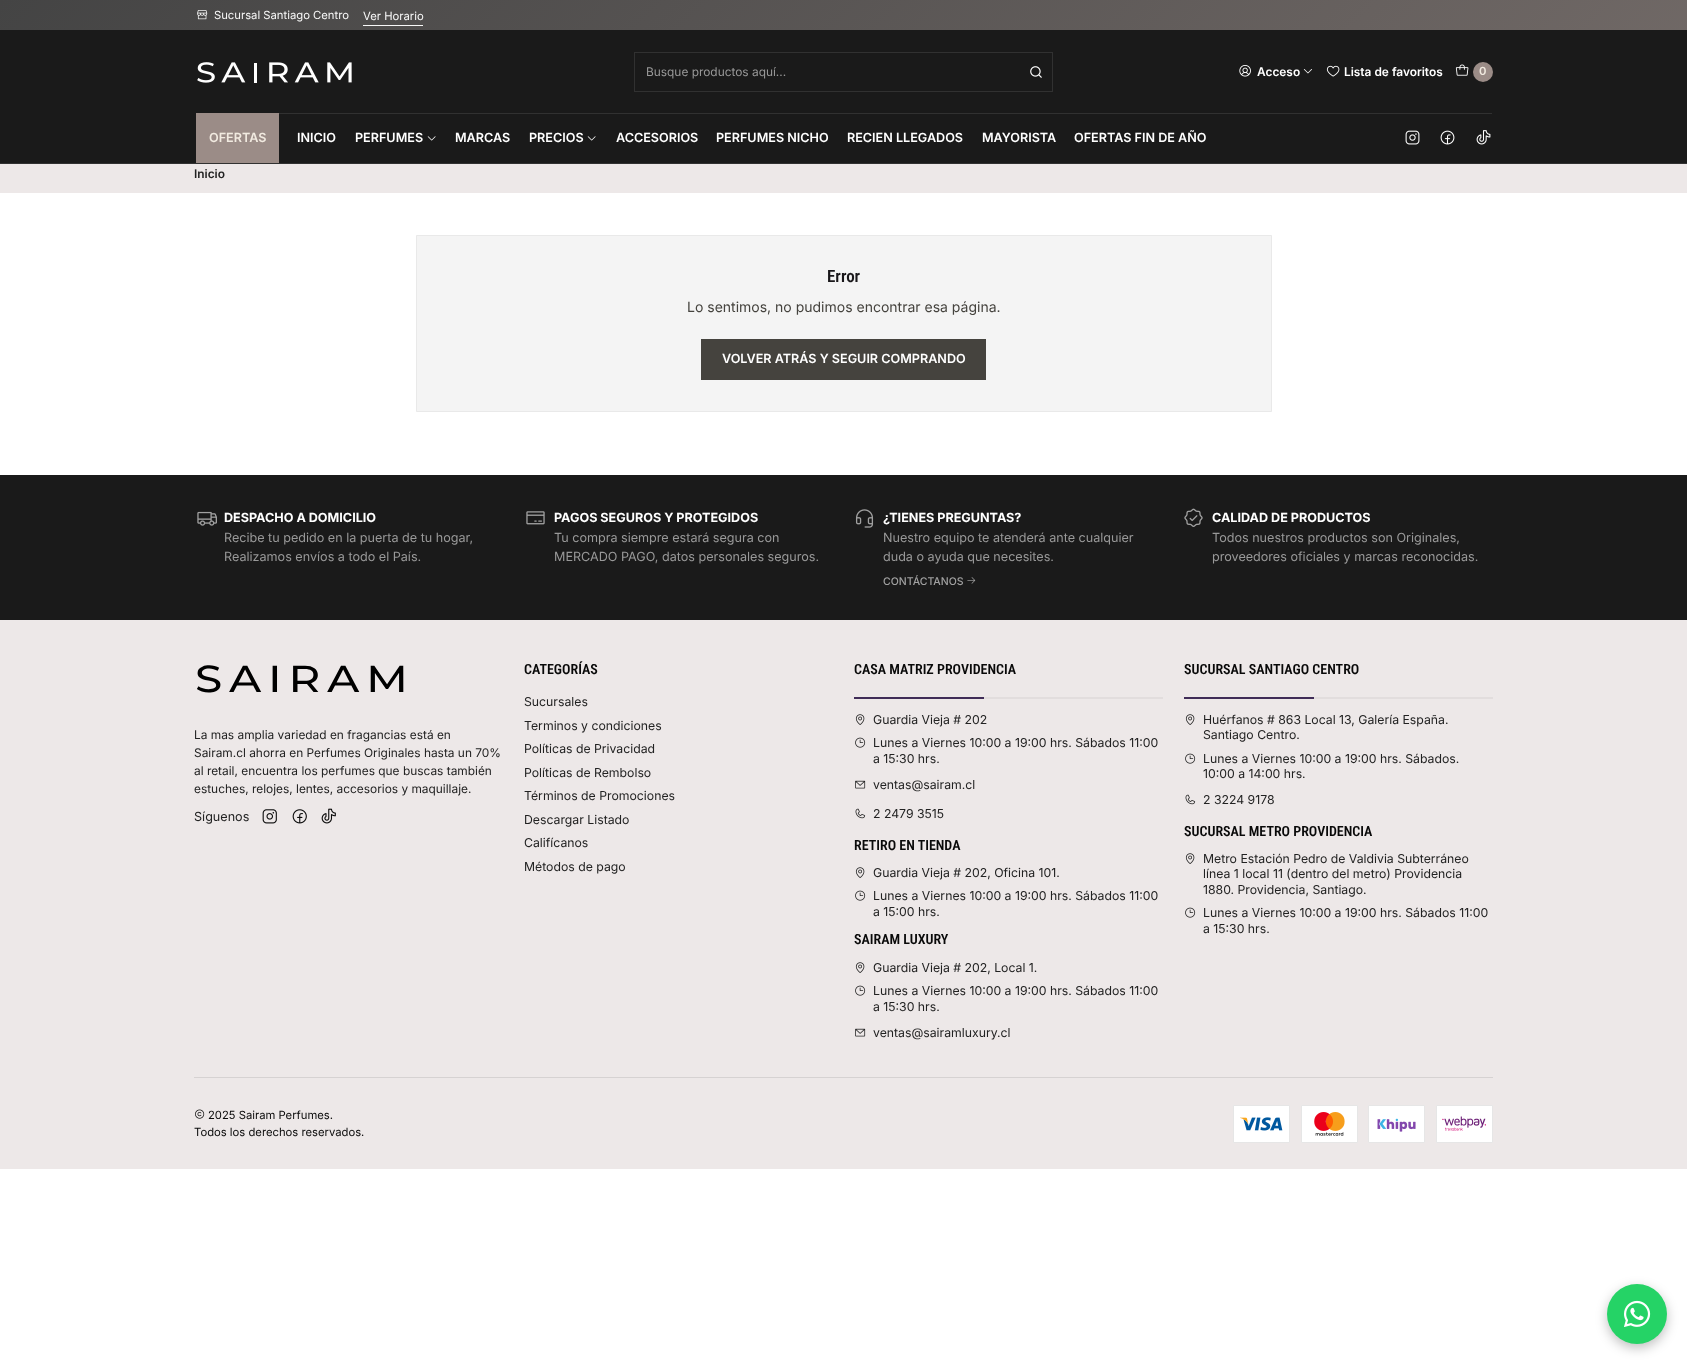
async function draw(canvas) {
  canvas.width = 1687;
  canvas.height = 1364;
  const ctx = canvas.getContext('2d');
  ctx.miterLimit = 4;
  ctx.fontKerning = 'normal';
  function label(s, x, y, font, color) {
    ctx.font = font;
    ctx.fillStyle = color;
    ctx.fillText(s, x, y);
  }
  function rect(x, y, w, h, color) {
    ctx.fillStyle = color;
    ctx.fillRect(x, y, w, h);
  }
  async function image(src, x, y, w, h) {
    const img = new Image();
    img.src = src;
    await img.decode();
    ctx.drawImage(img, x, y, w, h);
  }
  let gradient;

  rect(0, 0, 1687, 1364, '#fff');
  gradient = ctx.createLinearGradient(1657, -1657, 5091, 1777);
  gradient.addColorStop(0, '#444');
  gradient.addColorStop(0.5, '#9b8c87');
  gradient.addColorStop(1, '#444');
  ctx.fillStyle = gradient;
  ctx.fillRect(0, 0, 1687, 30);
  await image('assets/img1.png', 197, 10, 11, 10);
  label('Sucursal Santiago Centro', 214, 19, '11.25px Inter', '#f8f8f8');
  rect(363, 25, 60, 1, '#f8f8f8');
  label('Ver Horario', 363, 20, '11.25px Inter', '#f8f8f8');
  rect(0, 30, 1687, 133, '#1a1a1a');
  rect(0, 163, 1687, 1, '#313131');
  await image('assets/img2.png', 197, 62, 155, 21);
  ctx.strokeStyle = '#313131';
  ctx.strokeRect(634.5, 52.5, 418, 39);
  label('Busque productos aquí...', 646, 76, '11.9px Inter', '#999');
  await image('assets/img3.png', 1030, 66, 12, 12);
  await image('assets/img4.png', 1239, 65, 12, 12);
  label('Acceso', 1257, 76, '600 11.9px Inter', '#fff');
  await image('assets/img5.png', 1303, 69, 9, 5);
  await image('assets/img6.png', 1326, 65, 14, 12);
  label('Lista de favoritos', 1344, 76, '600 11.9px Inter', '#fff');
  await image('assets/img7.png', 1455, 64, 14, 12);
  ctx.fillStyle = '#9b8c87';
  ctx.beginPath();
  ctx.arc(1483, 72, 10, 0, 2 * Math.PI);
  ctx.fill();
  label('0', 1479, 75, '600 11.25px Inter', '#f1eae0');
  rect(279, 113, 1213, 1, '#313131');
  rect(196, 113, 83, 50, '#9b8c87');
  label('OFERTAS', 209, 142, '600 12.6px Inter', '#f1eae0');
  label('INICIO', 297, 142, '600 12.6px Inter', '#fff');
  label('PERFUMES', 355, 142, '600 12.6px Inter', '#fff');
  await image('assets/img8.png', 427, 136, 9, 5);
  label('MARCAS', 455, 142, '600 12.6px Inter', '#fff');
  label('PRECIOS', 529, 142, '600 12.6px Inter', '#fff');
  await image('assets/img8.png', 587, 136, 9, 5);
  label('ACCESORIOS', 616, 142, '600 12.6px Inter', '#fff');
  label('PERFUMES NICHO', 716, 142, '600 12.6px Inter', '#fff');
  label('RECIEN LLEGADOS', 847, 142, '600 12.6px Inter', '#fff');
  label('MAYORISTA', 982, 142, '600 12.6px Inter', '#fff');
  label('OFERTAS FIN DE AÑO', 1074, 142, '600 12.6px Inter', '#fff');
  await image('assets/img9.png', 1405, 130, 15, 15);
  await image('assets/img10.png', 1440, 130, 15, 15);
  await image('assets/img11.png', 1476, 130, 15, 15);
  rect(0, 164, 1687, 29, '#ede8e8');
  label('Inicio', 194, 178, '600 11.9px Inter', '#222');
  ctx.fillStyle = '#f4f4f4';
  ctx.beginPath();
  ctx.rect(416.5, 235.5, 855, 176);
  ctx.fill();
  ctx.strokeStyle = '#e9e9e9';
  ctx.stroke();
  label('Error', 827, 282, '600 17px Roboto Condensed', '#19171a');
  label('Lo sentimos, no pudimos encontrar esa página.', 687, 312, '14px Inter', '#45433e');
  rect(701, 339, 285, 41, '#45433e');
  label('VOLVER ATRÁS Y SEGUIR COMPRANDO', 722, 363, '600 12.6px Inter', '#fff');
  rect(0, 475, 1687, 145, '#1a1a1a');
  await image('assets/img12.png', 197, 511, 20, 15);
  label('DESPACHO A DOMICILIO', 224, 522, 'bold 12.6px Inter', '#fff');
  label('Recibe tu pedido en la puerta de tu hogar,', 224, 542, '12.6px Inter', '#999');
  label('Realizamos envíos a todo el País.', 224, 561, '12.6px Inter', '#999');
  await image('assets/img13.png', 526, 511, 19, 14);
  label('PAGOS SEGUROS Y PROTEGIDOS', 554, 522, 'bold 12.6px Inter', '#fff');
  label('Tu compra siempre estará segura con', 554, 542, '12.6px Inter', '#999');
  label('MERCADO PAGO, datos personales seguros.', 554, 561, '12.6px Inter', '#999');
  await image('assets/img14.png', 855, 509, 19, 19);
  label('¿TIENES PREGUNTAS?', 883, 522, 'bold 12.6px Inter', '#fff');
  label('Nuestro equipo te atenderá ante cualquier', 883, 542, '12.6px Inter', '#999');
  label('duda o ayuda que necesites.', 883, 561, '12.6px Inter', '#999');
  label('CONTÁCTANOS', 883, 585, '500 10.5px Inter', '#a1a1a1');
  await image('assets/img15.png', 967, 577, 9, 7);
  await image('assets/img16.png', 1184, 508, 19, 19);
  label('CALIDAD DE PRODUCTOS', 1212, 522, 'bold 12.6px Inter', '#fff');
  label('Todos nuestros productos son Originales,', 1212, 542, '12.6px Inter', '#999');
  label('proveedores oficiales y marcas reconocidas.', 1212, 561, '12.6px Inter', '#999');
  rect(0, 620, 1687, 549, '#ede8e8');
  await image('assets/img17.png', 197, 665, 207, 28);
  label('La mas amplia variedad en fragancias está en', 194, 739, '11.9px Inter', '#222');
  label('Sairam.cl ahorra en Perfumes Originales hasta un 70%', 194, 757, '11.9px Inter', '#222');
  label('al retail, encuentra los perfumes que buscas también', 194, 775, '11.9px Inter', '#222');
  label('estuches, relojes, lentes, accesorios y maquillaje.', 194, 793, '11.9px Inter', '#222');
  label('Síguenos', 194, 821, '12.6px Inter', '#222');
  await image('assets/img18.png', 262, 809, 15, 15);
  await image('assets/img19.png', 292, 809, 15, 15);
  await image('assets/img20.png', 321, 808, 15, 16);
  label('CATEGORÍAS', 524, 674, '600 14px Roboto Condensed', '#090909');
  label('Sucursales', 524, 706, '12.25px Inter', '#222');
  label('Terminos y condiciones', 524, 730, '12.25px Inter', '#222');
  label('Políticas de Privacidad', 524, 753, '12.25px Inter', '#222');
  label('Políticas de Rembolso', 524, 777, '12.25px Inter', '#222');
  label('Términos de Promociones', 524, 800, '12.25px Inter', '#222');
  label('Descargar Listado', 524, 824, '12.25px Inter', '#222');
  label('Califícanos', 524, 847, '12.25px Inter', '#222');
  label('Métodos de pago', 524, 871, '12.25px Inter', '#222');
  label('CASA MATRIZ PROVIDENCIA', 854, 674, '600 14px Roboto Condensed', '#090909');
  rect(984, 697, 179, 2, '#e2dddd');
  rect(854, 697, 130, 2, '#402c57');
  await image('assets/img21.png', 855, 714, 10, 11);
  label('Guardia Vieja # 202', 873, 724, '12.25px Inter', '#222');
  await image('assets/img22.png', 855, 737, 11, 11);
  label('Lunes a Viernes 10:00 a 19:00 hrs. Sábados 11:00', 873, 747, '12.25px Inter', '#222');
  label('a 15:30 hrs.', 873, 763, '12.25px Inter', '#222');
  await image('assets/img23.png', 855, 780, 11, 9);
  label('ventas@sairam.cl', 873, 789, '12.25px Inter', '#222');
  await image('assets/img24.png', 855, 808, 11, 11);
  label('2 2479 3515', 873, 818, '12.25px Inter', '#222');
  label('RETIRO EN TIENDA', 854, 850, '600 14px Roboto Condensed', '#090909');
  await image('assets/img21.png', 855, 867, 10, 11);
  label('Guardia Vieja # 202, Oficina 101.', 873, 877, '12.25px Inter', '#222');
  await image('assets/img22.png', 855, 890, 11, 11);
  label('Lunes a Viernes 10:00 a 19:00 hrs. Sábados 11:00', 873, 900, '12.25px Inter', '#222');
  label('a 15:00 hrs.', 873, 916, '12.25px Inter', '#222');
  label('SAIRAM LUXURY', 854, 944, '600 14px Roboto Condensed', '#090909');
  await image('assets/img21.png', 855, 962, 10, 11);
  label('Guardia Vieja # 202, Local 1.', 873, 972, '12.25px Inter', '#222');
  await image('assets/img22.png', 855, 985, 11, 11);
  label('Lunes a Viernes 10:00 a 19:00 hrs. Sábados 11:00', 873, 995, '12.25px Inter', '#222');
  label('a 15:30 hrs.', 873, 1011, '12.25px Inter', '#222');
  await image('assets/img23.png', 855, 1028, 11, 9);
  label('ventas@sairamluxury.cl', 873, 1037, '12.25px Inter', '#222');
  label('SUCURSAL SANTIAGO CENTRO', 1184, 674, '600 14px Roboto Condensed', '#090909');
  rect(1314, 697, 179, 2, '#e2dddd');
  rect(1184, 697, 130, 2, '#402c57');
  await image('assets/img21.png', 1185, 714, 10, 11);
  label('Huérfanos # 863 Local 13, Galería España.', 1203, 724, '12.25px Inter', '#222');
  label('Santiago Centro.', 1203, 739, '12.25px Inter', '#222');
  await image('assets/img22.png', 1185, 753, 11, 11);
  label('Lunes a Viernes 10:00 a 19:00 hrs. Sábados.', 1203, 763, '12.25px Inter', '#222');
  label('10:00 a 14:00 hrs.', 1203, 778, '12.25px Inter', '#222');
  await image('assets/img24.png', 1185, 794, 11, 11);
  label('2 3224 9178', 1203, 804, '12.25px Inter', '#222');
  label('SUCURSAL METRO PROVIDENCIA', 1184, 836, '600 14px Roboto Condensed', '#090909');
  await image('assets/img21.png', 1185, 853, 10, 11);
  label('Metro Estación Pedro de Valdivia Subterráneo', 1203, 863, '12.25px Inter', '#222');
  label('línea 1 local 11 (dentro del metro) Providencia', 1203, 878, '12.25px Inter', '#222');
  label('1880. Providencia, Santiago.', 1203, 894, '12.25px Inter', '#222');
  await image('assets/img22.png', 1185, 907, 11, 11);
  label('Lunes a Viernes 10:00 a 19:00 hrs. Sábados 11:00', 1203, 917, '12.25px Inter', '#222');
  label('a 15:30 hrs.', 1203, 933, '12.25px Inter', '#222');
  rect(194, 1077, 1299, 1, '#d6d2d2');
  await image('assets/img25.png', 195, 1109, 10, 10);
  label('2025 Sairam Perfumes.', 208, 1119, '11.25px Inter', '#090909');
  label('Todos los derechos reservados.', 194, 1136, '11.25px Inter', '#090909');
  ctx.fillStyle = '#fff';
  ctx.beginPath();
  ctx.rect(1233.5, 1105.5, 56, 37);
  ctx.fill();
  ctx.strokeStyle = '#e6e6e6';
  ctx.stroke();
  await image('assets/img26.png', 1240, 1117, 43, 14);
  ctx.beginPath();
  ctx.rect(1301.5, 1105.5, 56, 37);
  ctx.fill();
  ctx.stroke();
  await image('assets/img27.png', 1314, 1112, 31, 24);
  ctx.beginPath();
  ctx.rect(1368.5, 1105.5, 56, 37);
  ctx.fill();
  ctx.stroke();
  await image('assets/img28.png', 1377, 1118, 39, 14);
  ctx.beginPath();
  ctx.rect(1436.5, 1105.5, 56, 37);
  ctx.fill();
  ctx.stroke();
  await image('assets/img29.png', 1442, 1116, 44, 15);
  ctx.fillStyle = '#00000040';
  ctx.filter = 'blur(6px)';
  ctx.beginPath();
  ctx.roundRect(1607, 1288, 60, 60, 30);
  ctx.fill();
  ctx.filter = 'none';
  ctx.fillStyle = '#25d366';
  ctx.beginPath();
  ctx.arc(1637, 1314, 30, 0, 2 * Math.PI);
  ctx.fill();
  await image('assets/img30.png', 1624, 1300, 27, 27);
}

draw(document.querySelector('canvas'));
